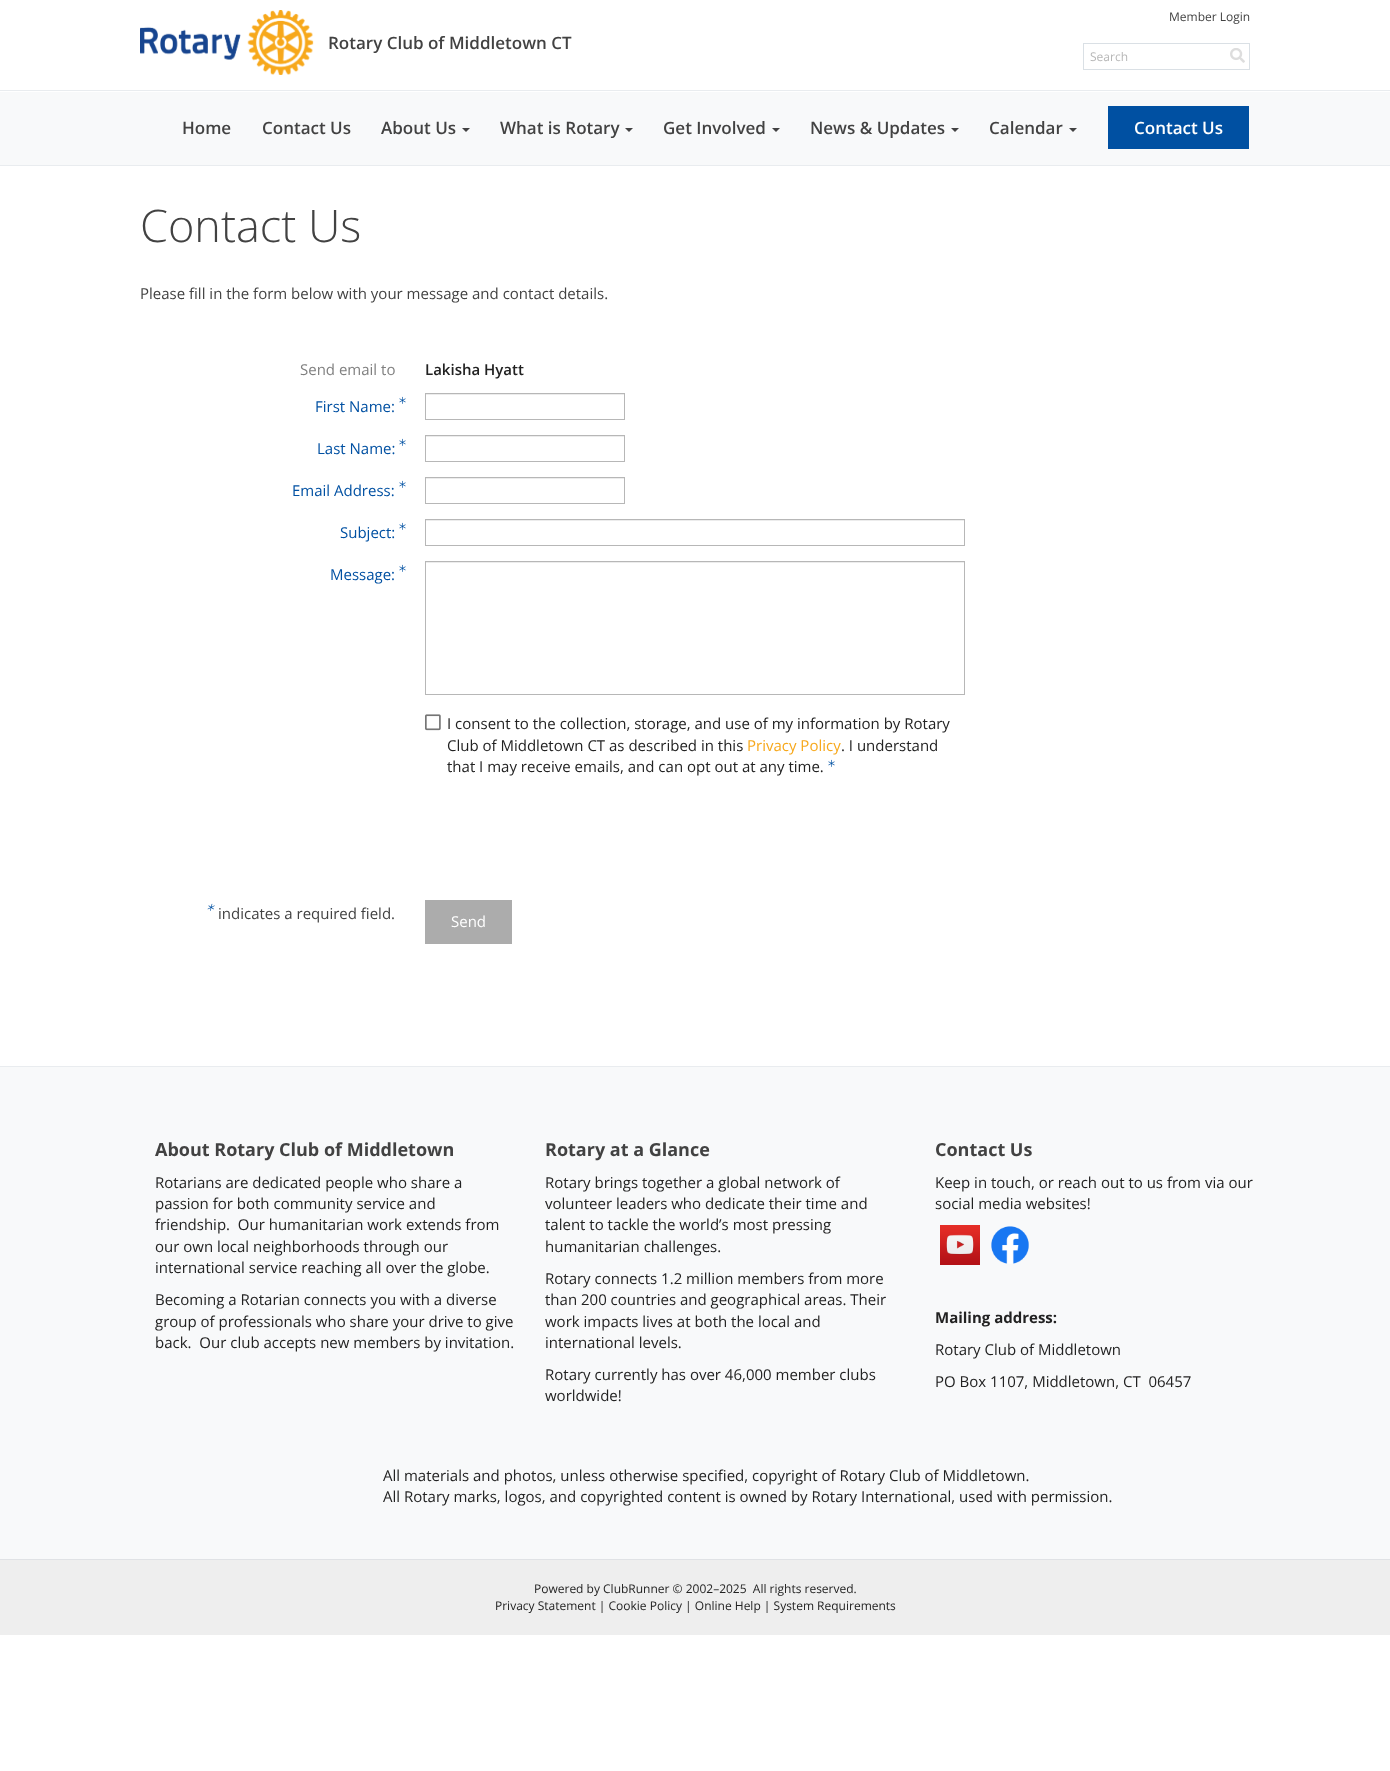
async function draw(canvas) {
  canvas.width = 1390;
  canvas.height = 1771;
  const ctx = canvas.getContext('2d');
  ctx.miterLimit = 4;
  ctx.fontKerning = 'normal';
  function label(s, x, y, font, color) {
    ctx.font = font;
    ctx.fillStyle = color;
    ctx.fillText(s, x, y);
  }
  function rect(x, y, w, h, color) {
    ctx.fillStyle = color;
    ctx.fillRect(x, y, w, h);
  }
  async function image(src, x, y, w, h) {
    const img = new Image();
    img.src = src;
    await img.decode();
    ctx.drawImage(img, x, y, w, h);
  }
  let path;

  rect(0, 0, 1390, 1771, '#fff');
  await image('assets/img1.png', 140, 10, 174, 65);
  label('Rotary Club of Middletown CT', 328, 49, '600 17px Open Sans', '#424242');
  label('Member Login', 1169, 21, '12px Open Sans', '#424242');
  ctx.strokeStyle = '#dae0e5';
  ctx.strokeRect(1083.5, 43.5, 166, 26);
  label('Search', 1090, 61, '12px Open Sans', '#b7b7b7');
  await image('assets/img2.png', 1230, 48, 15, 15);
  rect(0, 90, 1390, 1, '#e9ecef');
  rect(0, 92, 1390, 73, '#f8f9fa');
  rect(0, 165, 1390, 1, '#e9ecef');
  label('Home', 182, 134, '600 17px Open Sans', '#424242');
  label('Contact Us', 262, 134, '600 17px Open Sans', '#424242');
  label('About Us', 381, 134, '600 17px Open Sans', '#424242');
  path = new Path2D('M462 128H470L466 132Z');
  ctx.fill(path);
  label('What is Rotary', 500, 134, '600 17px Open Sans', '#424242');
  path = new Path2D('M625 128H633L629 132Z');
  ctx.fill(path);
  label('Get Involved', 663, 134, '600 17px Open Sans', '#424242');
  path = new Path2D('M772 128H780L776 132Z');
  ctx.fill(path);
  label('News & Updates', 810, 134, '600 17px Open Sans', '#424242');
  path = new Path2D('M951 128H959L955 132Z');
  ctx.fill(path);
  label('Calendar', 989, 134, '600 17px Open Sans', '#424242');
  path = new Path2D('M1069 128H1077L1073 132Z');
  ctx.fill(path);
  rect(1108, 106, 141, 43, '#0050a2');
  label('Contact Us', 1134, 134, '600 17px Open Sans', '#fff');
  label('Contact Us', 140, 242, '300 45px Open Sans', '#424242');
  label('Please fill in the form below with your message and contact details.', 140, 299, '15px Open Sans', '#424242');
  label('Send email to', 300, 375, '15px Open Sans', '#808080');
  label('Lakisha Hyatt', 425, 375, '600 15px Open Sans', '#222');
  await image('assets/img3.png', 399, 396, 7, 8);
  label('First Name:', 315, 412, '15px Open Sans', '#0050a2');
  rect(426, 394, 198, 1, '#ececec');
  ctx.strokeStyle = '#b7b7b7';
  ctx.strokeRect(425.5, 393.5, 199, 26);
  await image('assets/img3.png', 399, 438, 7, 8);
  label('Last Name:', 317, 454, '15px Open Sans', '#0050a2');
  rect(426, 436, 198, 1, '#ececec');
  ctx.strokeRect(425.5, 435.5, 199, 26);
  label('Email Address:', 292, 496, '15px Open Sans', '#0050a2');
  await image('assets/img3.png', 399, 480, 7, 8);
  rect(426, 478, 198, 1, '#ececec');
  ctx.strokeRect(425.5, 477.5, 199, 26);
  label('Subject:', 340, 538, '15px Open Sans', '#0050a2');
  await image('assets/img3.png', 399, 522, 7, 8);
  rect(426, 520, 538, 1, '#ececec');
  ctx.strokeRect(425.5, 519.5, 539, 26);
  await image('assets/img3.png', 399, 564, 7, 8);
  label('Message:', 330, 580, '15px Open Sans', '#0050a2');
  rect(426, 562, 538, 1, '#ececec');
  ctx.strokeRect(425.5, 561.5, 539, 133);
  await image('assets/img4.png', 425, 714, 16, 17);
  label('I consent to the collection, storage, and use of my information by Rotary', 447, 729, '15px Open Sans', '#222');
  label('Club of Middletown CT as described in this', 447, 751, '15px Open Sans', '#222');
  label('Privacy Policy', 747, 751, '15px Open Sans', '#f7a81b');
  label('. I understand', 841, 751, '15px Open Sans', '#222');
  label('that I may receive emails, and can opt out at any time.', 447, 772, '15px Open Sans', '#222');
  await image('assets/img3.png', 828, 759, 7, 8);
  await image('assets/img5.png', 207, 903, 8, 8);
  label('indicates a required field.', 218, 919, '15px Open Sans', '#424242');
  rect(425, 900, 87, 44, '#acacac');
  label('Send', 451, 927, '15px Open Sans', '#fff');
  rect(0, 1560, 1390, 75, '#eee');
  rect(0, 1067, 1390, 492, '#f8f9fa');
  rect(0, 1066, 1390, 1, '#e9ecef');
  rect(0, 1559, 1390, 1, '#e0e2e5');
  label('About Rotary Club of Middletown', 155, 1156, 'bold 18px Open Sans', '#424242');
  label('Rotarians are dedicated people who share a', 155, 1188, '15px Open Sans', '#222');
  label('passion for both community service and', 155, 1209, '15px Open Sans', '#222');
  label('friendship.  Our humanitarian work extends from', 155, 1230, '15px Open Sans', '#222');
  label('our own local neighborhoods through our', 155, 1252, '15px Open Sans', '#222');
  label('international service reaching all over the globe.', 155, 1273, '15px Open Sans', '#222');
  label('Becoming a Rotarian connects you with a diverse', 155, 1305, '15px Open Sans', '#222');
  label('group of professionals who share your drive to give', 155, 1327, '15px Open Sans', '#222');
  label('back.  Our club accepts new members by invitation.', 155, 1348, '15px Open Sans', '#222');
  label('Rotary at a Glance', 545, 1156, 'bold 18px Open Sans', '#424242');
  label('Rotary brings together a global network of', 545, 1188, '15px Open Sans', '#222');
  label('volunteer leaders who dedicate their time and', 545, 1209, '15px Open Sans', '#222');
  label('talent to tackle the world’s most pressing', 545, 1230, '15px Open Sans', '#222');
  label('humanitarian challenges.', 545, 1252, '15px Open Sans', '#222');
  label('Rotary connects 1.2 million members from more', 545, 1284, '15px Open Sans', '#222');
  label('than 200 countries and geographical areas. Their', 545, 1305, '15px Open Sans', '#222');
  label('work impacts lives at both the local and', 545, 1327, '15px Open Sans', '#222');
  label('international levels.', 545, 1348, '15px Open Sans', '#222');
  label('Rotary currently has over 46,000 member clubs', 545, 1380, '15px Open Sans', '#222');
  label('worldwide!', 545, 1401, '15px Open Sans', '#222');
  label('Contact Us', 935, 1156, 'bold 18px Open Sans', '#424242');
  label('Keep in touch, or reach out to us from via our', 935, 1188, '15px Open Sans', '#222');
  label('social media websites!', 935, 1209, '15px Open Sans', '#222');
  await image('assets/img6.png', 940, 1225, 40, 40);
  await image('assets/img7.png', 991, 1226, 38, 38);
  label('Mailing address:', 935, 1323, 'bold 15px Open Sans', '#222');
  label('Rotary Club of Middletown', 935, 1355, '15px Open Sans', '#222');
  label('PO Box 1107, Middletown, CT  06457', 935, 1387, '15px Open Sans', '#222');
  label('All materials and photos, unless otherwise specified, copyright of Rotary Club of Middletown.', 383, 1481, '15px Open Sans', '#222');
  label('All Rotary marks, logos, and copyrighted content is owned by Rotary International, used with permission.', 383, 1502, '15px Open Sans', '#222');
  label('Powered by ClubRunner © 2002–2025  All rights reserved.', 534, 1593, '12px Open Sans', '#222');
  label('Privacy Statement | Cookie Policy | Online Help | System Requirements', 495, 1610, '12px Open Sans', '#222');
}

draw(document.querySelector('canvas'));
